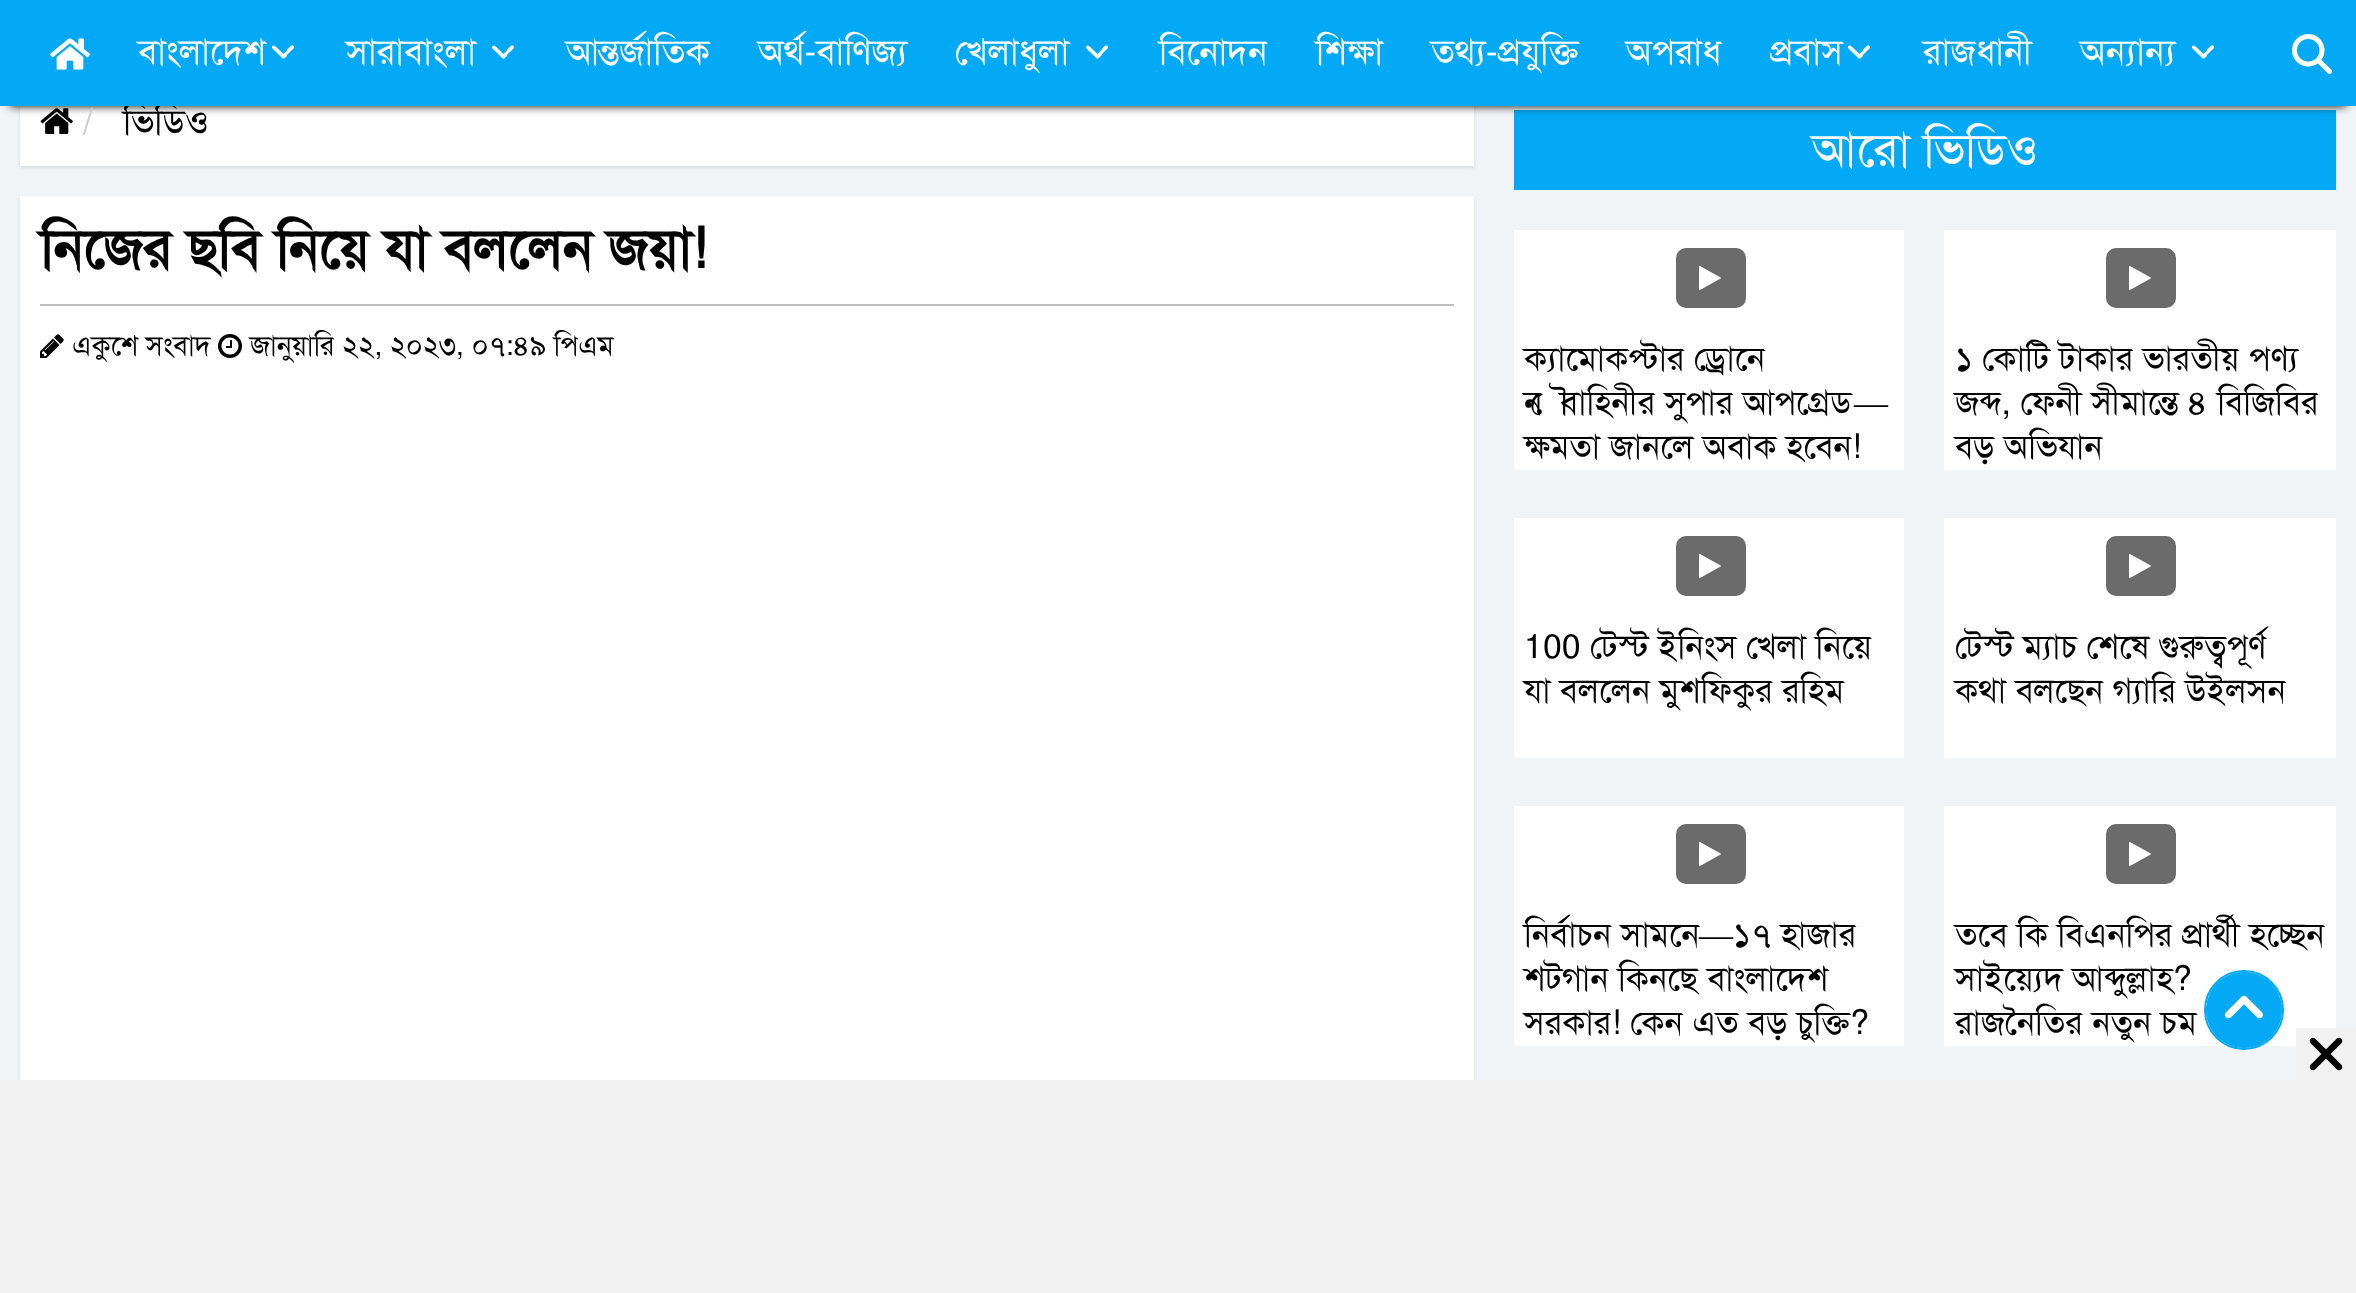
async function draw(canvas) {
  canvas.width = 2356;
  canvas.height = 1293;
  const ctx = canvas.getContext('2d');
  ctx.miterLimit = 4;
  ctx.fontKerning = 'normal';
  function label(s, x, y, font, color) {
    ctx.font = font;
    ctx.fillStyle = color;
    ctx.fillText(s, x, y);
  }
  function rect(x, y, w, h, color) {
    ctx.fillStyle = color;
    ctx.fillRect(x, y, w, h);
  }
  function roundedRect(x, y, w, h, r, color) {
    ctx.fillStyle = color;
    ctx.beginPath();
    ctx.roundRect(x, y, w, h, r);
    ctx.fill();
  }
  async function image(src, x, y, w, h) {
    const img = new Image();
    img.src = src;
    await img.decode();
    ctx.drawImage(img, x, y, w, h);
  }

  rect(0, 0, 2356, 1293, '#f1f4f7');
  ctx.fillStyle = '#0000001a';
  ctx.filter = 'blur(2px)';
  ctx.beginPath();
  ctx.rect(20, 80, 1454, 88);
  ctx.fill();
  ctx.filter = 'none';
  rect(20, 106, 1454, 60, '#fff');
  await image('assets/img5.png', 40, 108, 33, 26);
  rect(1514, 110, 822, 80, '#03a9f4');
  ctx.fillStyle = '#000';
  ctx.filter = 'blur(5px)';
  ctx.beginPath();
  ctx.rect(10, 20, 2336, 86);
  ctx.fill();
  ctx.filter = 'none';
  label('ভিডিও', 123, 134, '36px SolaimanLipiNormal', '#000');
  rect(0, 0, 2356, 106, '#03a9f4');
  await image('assets/img1.png', 50, 38, 40, 32);
  label('বাংলাদেশ', 138, 64, '36px SolaimanLipiNormal', '#fff');
  await image('assets/img2.png', 271, 45, 27, 14);
  label('সারাবাংলা', 346, 64, '36px SolaimanLipiNormal', '#fff');
  await image('assets/img2.png', 491, 45, 27, 14);
  label('আন্তর্জাতিক', 566, 64, '36px SolaimanLipiNormal', '#fff');
  label('অর্থ-বাণিজ্য', 758, 64, '36px SolaimanLipiNormal', '#fff');
  label('খেলাধুলা', 955, 64, '36px SolaimanLipiNormal', '#fff');
  await image('assets/img3.png', 1085, 45, 27, 14);
  label('বিনোদন', 1159, 64, '36px SolaimanLipiNormal', '#fff');
  label('শিক্ষা', 1316, 64, '36px SolaimanLipiNormal', '#fff');
  label('তথ্য-প্রযুক্তি', 1431, 64, '36px SolaimanLipiNormal', '#fff');
  label('অপরাধ', 1626, 64, '36px SolaimanLipiNormal', '#fff');
  label('প্রবাস', 1770, 64, '36px SolaimanLipiNormal', '#fff');
  await image('assets/img2.png', 1847, 45, 27, 14);
  label('রাজধানী', 1923, 64, '36px SolaimanLipiNormal', '#fff');
  label('অন্যান্য', 2080, 64, '36px SolaimanLipiNormal', '#fff');
  await image('assets/img2.png', 2191, 45, 27, 14);
  await image('assets/img4.png', 2292, 34, 40, 40);
  label('/', 83, 134, '36px SolaimanLipiNormal', '#ccc');
  ctx.fillStyle = '#0000001a';
  ctx.filter = 'blur(2px)';
  ctx.beginPath();
  ctx.rect(20, 198, 1454, 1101);
  ctx.fill();
  ctx.filter = 'none';
  rect(20, 196, 1454, 884, '#fff');
  label('নিজের ছবি নিয়ে যা বললেন জয়া!', 40, 268, 'bold 56px SolaimanLipiNormal', '#000');
  rect(40, 304, 1414, 2, '#bfbfbf');
  await image('assets/img6.png', 40, 334, 24, 24);
  label('একুশে সংবাদ', 72, 355, '28px SolaimanLipiNormal', '#000');
  await image('assets/img7.png', 218, 334, 24, 24);
  label('জানুয়ারি ২২, ২০২৩, ০৭:৪৯ পিএম', 250, 355, '28px SolaimanLipiNormal', '#000');
  label('আরো ভিডিও', 1812, 166, '48px SolaimanLipiNormal', '#fff');
  rect(1514, 230, 390, 240, '#fff');
  roundedRect(1676, 248, 70, 60, 10, '#6b6b6b');
  await image('assets/img8.png', 1699, 265, 22, 26);
  label('ক্যামোকপ্টার ড্রোনে', 1524, 370, '34px SolaimanLipiNormal', '#000');
  ctx.save();
  ctx.beginPath();
  ctx.rect(1514, 326, 390, 144);
  ctx.clip();
  label('নৌবাহিনীর সুপার আপগ্রেড', 1524, 414, '34px SolaimanLipiNormal', '#000');
  ctx.restore();
  label('—', 1854, 414, '34px Liberation Serif', '#000');
  label('ক্ষমতা জানলে অবাক হবেন!', 1524, 458, '34px SolaimanLipiNormal', '#000');
  rect(1944, 230, 392, 240, '#fff');
  roundedRect(2106, 248, 70, 60, 10, '#6b6b6b');
  await image('assets/img8.png', 2129, 265, 22, 26);
  label('১ কোটি টাকার ভারতীয় পণ্য', 1955, 370, '34px SolaimanLipiNormal', '#000');
  label('জব্দ, ফেনী সীমান্তে ৪ বিজিবির', 1955, 414, '34px SolaimanLipiNormal', '#000');
  label('বড় অভিযান', 1955, 458, '34px SolaimanLipiNormal', '#000');
  rect(1514, 518, 390, 240, '#fff');
  roundedRect(1676, 536, 70, 60, 10, '#6b6b6b');
  await image('assets/img8.png', 1699, 553, 22, 26);
  label('100 টেস্ট ইনিংস খেলা নিয়ে', 1524, 658, '34px SolaimanLipiNormal', '#000');
  label('যা বললেন মুশফিকুর রহিম', 1524, 702, '34px SolaimanLipiNormal', '#000');
  rect(1944, 518, 392, 240, '#fff');
  roundedRect(2106, 536, 70, 60, 10, '#6b6b6b');
  await image('assets/img8.png', 2129, 553, 22, 26);
  label('টেস্ট ম্যাচ শেষে গুরুত্বপূর্ণ', 1955, 658, '34px SolaimanLipiNormal', '#000');
  label('কথা বলছেন গ্যারি উইলসন', 1955, 702, '34px SolaimanLipiNormal', '#000');
  rect(1514, 806, 390, 240, '#fff');
  roundedRect(1676, 824, 70, 60, 10, '#6b6b6b');
  await image('assets/img8.png', 1699, 841, 22, 26);
  label('নির্বাচন সামনে', 1524, 946, '34px SolaimanLipiNormal', '#000');
  label('—', 1699, 946, '34px Liberation Serif', '#000');
  label('১৭ হাজার', 1733, 946, '34px SolaimanLipiNormal', '#000');
  label('শটগান কিনছে বাংলাদেশ', 1524, 990, '34px SolaimanLipiNormal', '#000');
  label('সরকার! কেন এত বড় চুক্তি?', 1524, 1034, '34px SolaimanLipiNormal', '#000');
  rect(1944, 806, 392, 240, '#fff');
  roundedRect(2106, 824, 70, 60, 10, '#6b6b6b');
  await image('assets/img8.png', 2129, 841, 22, 26);
  label('তবে কি বিএনপির প্রার্থী হচ্ছেন', 1955, 946, '34px SolaimanLipiNormal', '#000');
  label('সাইয়্যেদ আব্দুল্লাহ?', 1955, 990, '34px SolaimanLipiNormal', '#000');
  label('রাজনৈতির নতুন চম', 1955, 1034, '34px SolaimanLipiNormal', '#000');
  ctx.fillStyle = '#fff';
  ctx.beginPath();
  ctx.arc(2244, 1010, 39, 0, 2 * Math.PI);
  ctx.fill();
  ctx.strokeStyle = '#03a9f4';
  ctx.lineWidth = 2;
  ctx.stroke();
  await image('assets/img9.png', 2206, 972, 76, 76);
  rect(2296, 1028, 60, 52, '#f1f1f1');
  await image('assets/img10.png', 2309, 1037, 34, 34);
  rect(0, 1080, 2356, 213, '#f1f1f1');
}

draw(document.querySelector('canvas'));
